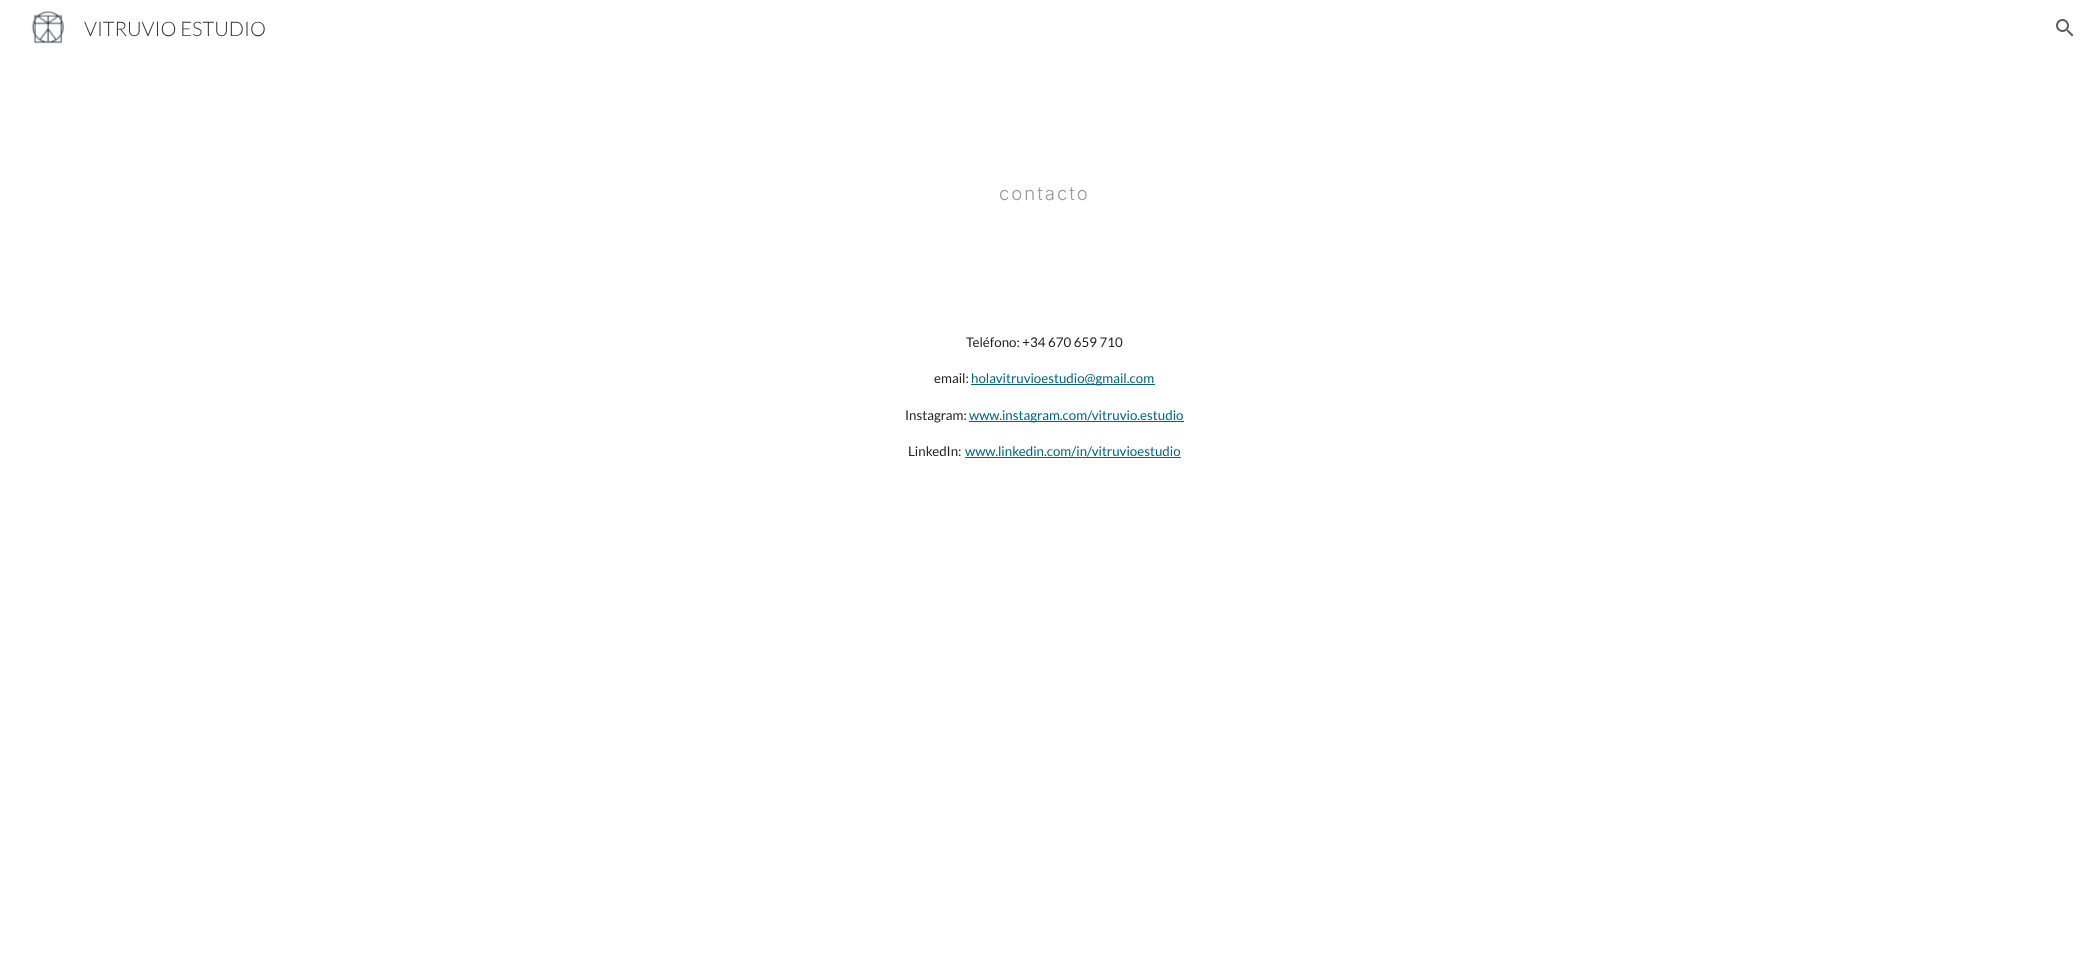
async function draw(canvas) {
  canvas.width = 2089;
  canvas.height = 958;
  const ctx = canvas.getContext('2d');
  ctx.miterLimit = 4;
  ctx.fontKerning = 'normal';
  function label(s, x, y, font, color) {
    ctx.font = font;
    ctx.fillStyle = color;
    ctx.fillText(s, x, y);
  }
  function rect(x, y, w, h, color) {
    ctx.fillStyle = color;
    ctx.fillRect(x, y, w, h);
  }
  async function image(src, x, y, w, h) {
    const img = new Image();
    img.src = src;
    await img.decode();
    ctx.drawImage(img, x, y, w, h);
  }

  rect(0, 0, 2089, 958, '#fff');
  await image('assets/img1.png', 31, 10, 34, 34);
  label('VITRUVIO ESTUDIO', 84, 36, '300 20px Lato', '#333');
  await image('assets/img2.png', 2056, 19, 18, 18);
  ctx.letterSpacing = '2px';
  label('contacto', 999, 200, '300 18.5px Inter', '#999');
  ctx.letterSpacing = '0px';
  label('Teléfono: +34 670 659 710', 966, 347, '13.3px Lato', '#212121');
  label('email:', 934, 383, '13.3px Lato', '#212121');
  rect(971, 384, 184, 1, '#006580');
  label('holavitruvioestudio@gmail.com', 971, 383, '13.3px Lato', '#006580');
  label('Instagram:', 905, 420, '13.3px Lato', '#212121');
  rect(969, 421, 215, 1, '#006580');
  label('www.instagram.com/vitruvio.estudio', 969, 420, '13.3px Lato', '#006580');
  label('LinkedIn:', 908, 456, '13.3px Lato', '#212121');
  label('www.linkedin.com/in/vitruvioestudio', 965, 456, '13.3px Lato', '#006580');
  rect(965, 457, 216, 1, '#006580');
}

draw(document.querySelector('canvas'));
